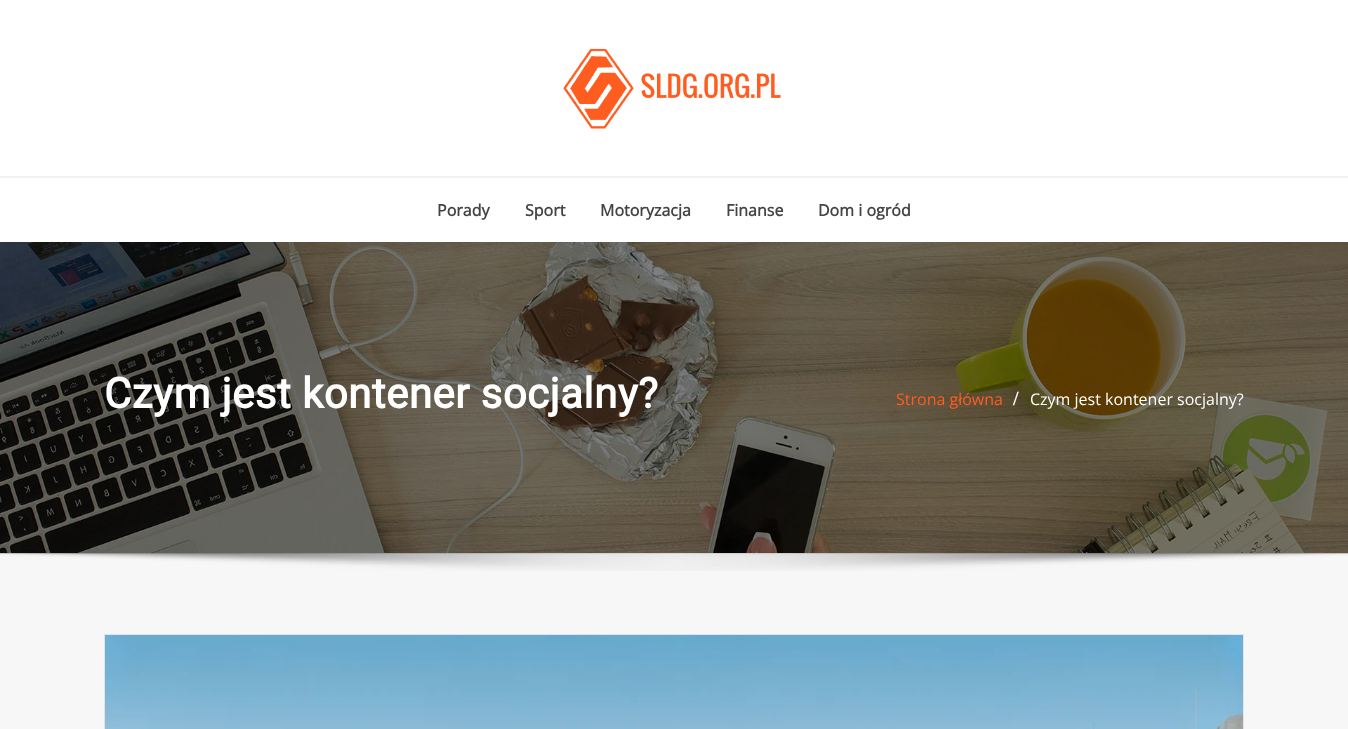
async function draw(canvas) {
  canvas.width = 1348;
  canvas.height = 729;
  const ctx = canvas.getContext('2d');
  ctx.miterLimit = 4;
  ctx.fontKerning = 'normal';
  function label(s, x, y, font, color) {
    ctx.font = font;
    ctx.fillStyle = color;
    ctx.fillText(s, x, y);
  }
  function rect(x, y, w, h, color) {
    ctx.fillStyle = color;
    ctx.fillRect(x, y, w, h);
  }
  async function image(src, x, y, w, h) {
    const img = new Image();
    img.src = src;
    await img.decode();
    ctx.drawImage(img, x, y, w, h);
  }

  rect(0, 0, 1348, 729, '#fff');
  await image('assets/img1.png', 563, 48, 218, 81);
  rect(0, 176, 1348, 2, '#f3f2f1');
  label('Porady', 437, 216, 'bold 16px Open Sans', '#444');
  label('Sport', 525, 216, 'bold 16px Open Sans', '#444');
  label('Motoryzacja', 600, 216, 'bold 16px Open Sans', '#444');
  label('Finanse', 726, 216, 'bold 16px Open Sans', '#444');
  label('Dom i ogród', 818, 216, 'bold 16px Open Sans', '#444');
  await image('assets/img2.png', 0, 242, 1348, 311);
  ctx.letterSpacing = '0.45px';
  label('Czym jest kontener socjalny?', 104, 408, 'bold 42px Roboto', '#fff');
  ctx.letterSpacing = '0px';
  label('Strona główna', 896, 405, '16px Open Sans', '#ff5d20');
  ctx.letterSpacing = '2px';
  label('/', 1013, 405, 'bold 20px Liberation Serif', '#fff');
  ctx.letterSpacing = '0px';
  label('Czym jest kontener socjalny?', 1030, 405, '16px Open Sans', '#fff');
  rect(0, 554, 1348, 175, '#f7f7f7');
  rect(0, 553, 1348, 1, '#e4e4e4');
  await image('assets/img3.png', 0, 553, 1348, 18);
  ctx.strokeStyle = '#e4e4e4';
  ctx.strokeRect(104.5, 634.5, 1139, 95);
  await image('assets/img4.png', 105, 635, 1138, 94);
}

draw(document.querySelector('canvas'));
